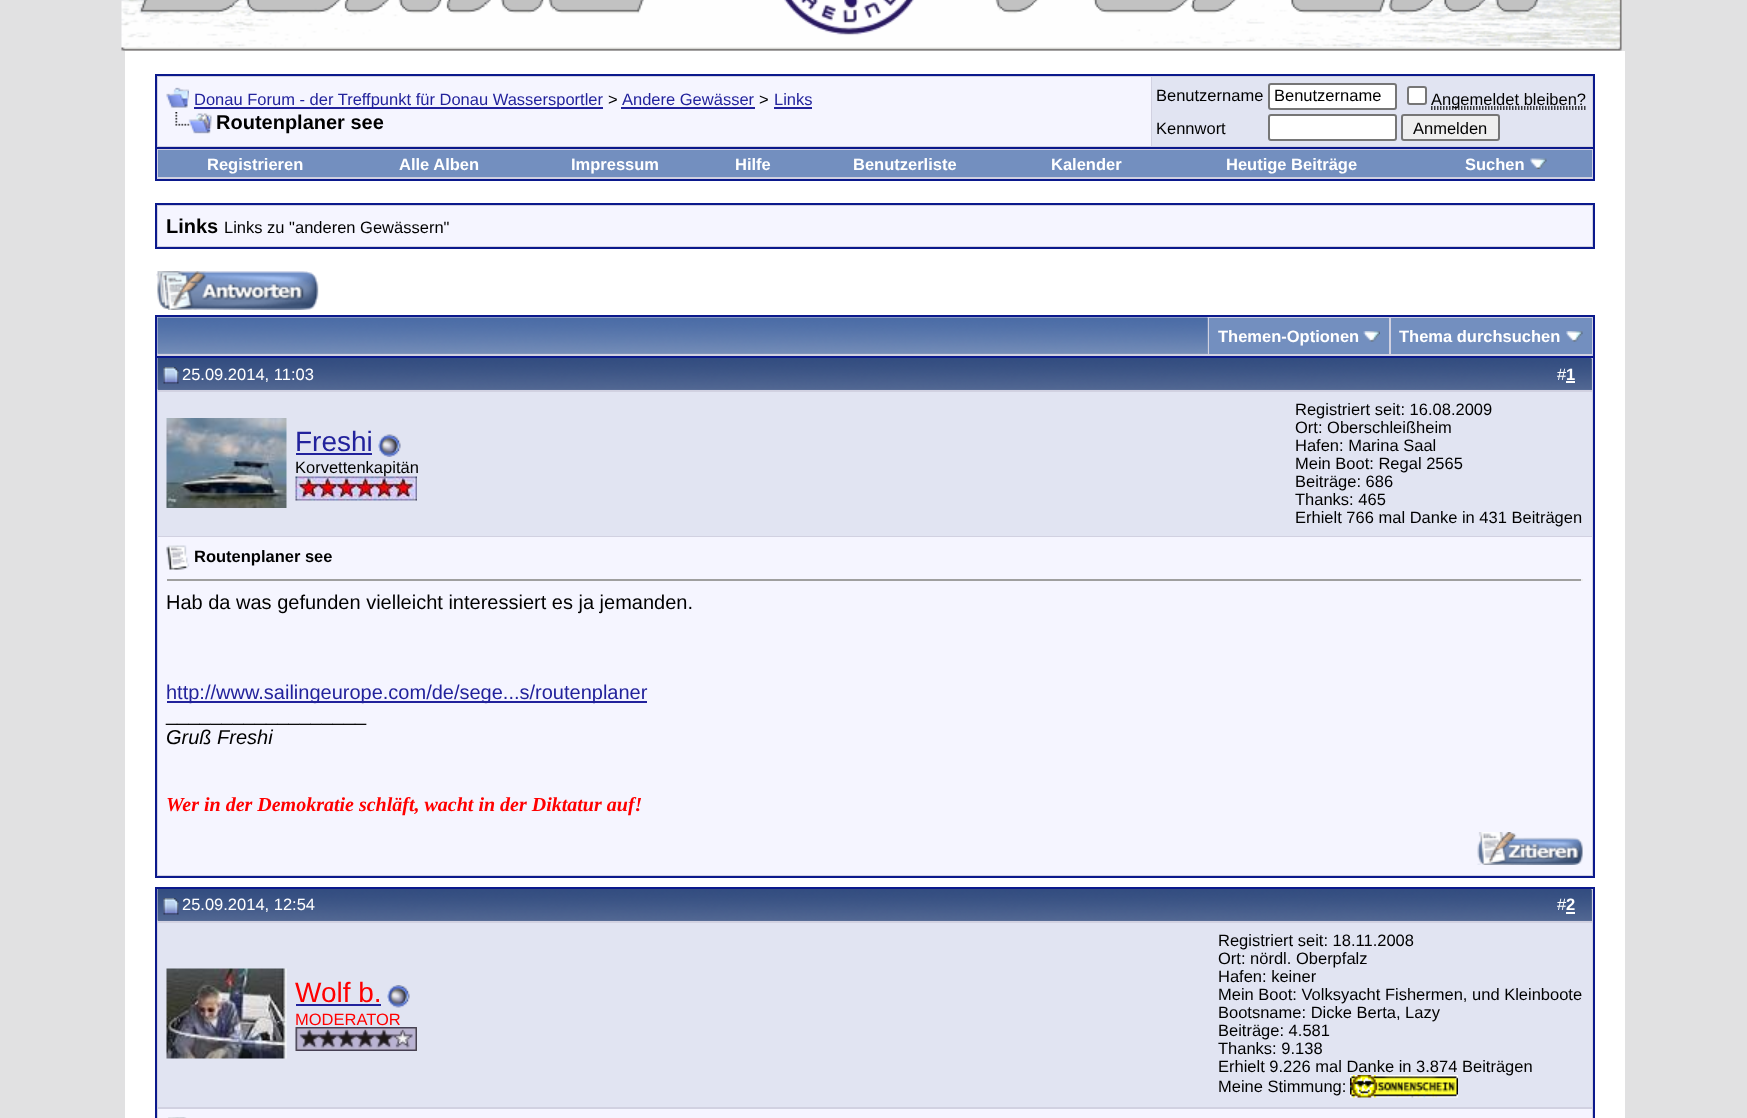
async function draw(canvas) {
  canvas.width = 1747;
  canvas.height = 1118;
  const ctx = canvas.getContext('2d');
  ctx.miterLimit = 4;
  ctx.fontKerning = 'normal';
  function label(s, x, y, font, color) {
    ctx.font = font;
    ctx.fillStyle = color;
    ctx.fillText(s, x, y);
  }
  function rect(x, y, w, h, color) {
    ctx.fillStyle = color;
    ctx.fillRect(x, y, w, h);
  }
  async function image(src, x, y, w, h) {
    const img = new Image();
    img.src = src;
    await img.decode();
    ctx.drawImage(img, x, y, w, h);
  }
  let path;

  rect(0, 0, 1747, 1118, '#e1e1e2');
  await image('assets/img1.png', 121, 0, 1501, 51);
  rect(125, 51, 1500, 1067, '#fff');
  ctx.fillStyle = '#d1d1e1';
  ctx.beginPath();
  ctx.rect(156, 75, 1438, 73);
  ctx.fill();
  ctx.strokeStyle = '#0b198c';
  ctx.lineWidth = 2;
  ctx.stroke();
  rect(158, 77, 993, 69, '#f5f5ff');
  await image('assets/img2.png', 166, 87, 23, 21);
  rect(194, 107, 409, 2, '#22229c');
  label('Donau Forum - der Treffpunkt für Donau Wassersportler', 194, 105, '16.5px Liberation Sans', '#22229c');
  label('>', 608, 105, '16.5px Liberation Sans', '#000');
  label('Andere Gewässer', 622, 105, '16.5px Liberation Sans', '#22229c');
  rect(621, 107, 134, 2, '#22229c');
  label('>', 759, 105, '16.5px Liberation Sans', '#000');
  label('Links', 774, 105, '16.5px Liberation Sans', '#22229c');
  rect(774, 107, 38, 2, '#22229c');
  await image('assets/img3.png', 175, 112, 37, 22);
  label('Routenplaner see', 216, 129, 'bold 20px Liberation Sans', '#000');
  rect(1152, 77, 440, 69, '#e1e4f2');
  label('Benutzername', 1156, 101, '16.5px Liberation Sans', '#000');
  ctx.fillStyle = '#fff';
  ctx.beginPath();
  ctx.roundRect(1269, 84, 127, 25, 2);
  ctx.fill();
  ctx.strokeStyle = '#767676';
  ctx.stroke();
  label('Benutzername', 1274, 101, '16.5px Liberation Sans', '#000');
  ctx.fillStyle = '#fff';
  ctx.beginPath();
  ctx.roundRect(1408, 87, 18, 17, 2);
  ctx.fill();
  ctx.stroke();
  path = new Path2D('M1431 109H1587');
  ctx.strokeStyle = '#000';
  ctx.lineWidth = 1.5;
  ctx.setLineDash([1.5, 1.5]);
  ctx.stroke(path);
  path = new Path2D('M1431 107H1586');
  ctx.stroke(path);
  label('Angemeldet bleiben?', 1431, 105, '16.5px Liberation Sans', '#000');
  label('Kennwort', 1156, 134, '16.5px Liberation Sans', '#000');
  ctx.fillStyle = '#fff';
  ctx.beginPath();
  ctx.roundRect(1269, 115, 127, 25, 2);
  ctx.fill();
  ctx.strokeStyle = '#767676';
  ctx.lineWidth = 2;
  ctx.setLineDash([]);
  ctx.stroke();
  ctx.fillStyle = '#efefef';
  ctx.beginPath();
  ctx.roundRect(1402, 115, 97, 25, 2);
  ctx.fill();
  ctx.stroke();
  label('Anmelden', 1413, 134, '16.5px Liberation Sans', '#000');
  rect(157, 149, 1436, 30, '#d1d1e1');
  rect(1593, 149, 2, 31, '#0b198c');
  rect(155, 179, 1440, 2, '#0b198c');
  rect(155, 149, 2, 31, '#0b198c');
  rect(158, 150, 1434, 27, '#738fbf');
  label('Registrieren', 207, 170, 'bold 16.5px Liberation Sans', '#fff');
  label('Alle Alben', 399, 170, 'bold 16.5px Liberation Sans', '#fff');
  label('Impressum', 571, 170, 'bold 16.5px Liberation Sans', '#fff');
  label('Hilfe', 735, 170, 'bold 16.5px Liberation Sans', '#fff');
  label('Benutzerliste', 853, 170, 'bold 16.5px Liberation Sans', '#fff');
  label('Kalender', 1051, 170, 'bold 16.5px Liberation Sans', '#fff');
  label('Heutige Beiträge', 1226, 170, 'bold 16.5px Liberation Sans', '#fff');
  label('Suchen', 1465, 170, 'bold 16.5px Liberation Sans', '#fff');
  await image('assets/img4.png', 1530, 158, 17, 11);
  ctx.fillStyle = '#d1d1e1';
  ctx.beginPath();
  ctx.rect(156, 204, 1438, 44);
  ctx.fill();
  ctx.strokeStyle = '#0b198c';
  ctx.stroke();
  rect(158, 206, 1434, 40, '#f5f5ff');
  label('Links', 166, 233, 'bold 20px Liberation Sans', '#000');
  label('Links zu "anderen Gewässern"', 224, 233, '16.5px Liberation Sans', '#000');
  await image('assets/img5.png', 156, 271, 163, 39);
  rect(157, 317, 1436, 39, '#d1d1e1');
  rect(155, 315, 1440, 2, '#0b198c');
  rect(1593, 315, 2, 41, '#0b198c');
  rect(155, 315, 2, 41, '#0b198c');
  rect(158, 318, 1050, 36, '#869bbf');
  await image('assets/img6.png', 157, 317, 1051, 37);
  rect(1209, 318, 180, 36, '#738fbf');
  label('Themen-Optionen', 1218, 342, 'bold 16.5px Liberation Sans', '#fff');
  await image('assets/img7.png', 1363, 331, 17, 11);
  rect(1391, 318, 201, 36, '#738fbf');
  label('Thema durchsuchen', 1399, 342, 'bold 16.5px Liberation Sans', '#fff');
  await image('assets/img8.png', 1566, 331, 17, 11);
  ctx.fillStyle = '#d1d1e1';
  ctx.beginPath();
  ctx.rect(156, 357, 1438, 520);
  ctx.fill();
  ctx.stroke();
  rect(158, 359, 1434, 31, '#5c7099');
  await image('assets/img9.png', 157, 358, 1435, 32);
  await image('assets/img10.png', 163, 367, 16, 17);
  label('25.09.2014, 11:03', 182, 380, '16.5px Liberation Sans', '#fff');
  label('#', 1557, 380, '16.5px Liberation Sans', '#fff');
  label('1', 1566, 380, 'bold 16.5px Liberation Sans', '#fff');
  rect(1566, 381, 9, 2, '#fff');
  rect(158, 392, 1434, 144, '#e1e4f2');
  await image('assets/img11.png', 166, 418, 121, 90);
  label('Freshi', 295, 451, '28px Liberation Sans', '#22229c');
  rect(296, 453, 76, 2, '#22229c');
  await image('assets/img12.png', 378, 434, 23, 23);
  label('Korvettenkapitän', 295, 473, '16.5px Liberation Sans', '#000');
  await image('assets/img13.png', 295, 476, 122, 25);
  label('Registriert seit: 16.08.2009', 1295, 415, '16.5px Liberation Sans', '#000');
  label('Ort: Oberschleißheim', 1295, 433, '16.5px Liberation Sans', '#000');
  label('Hafen: Marina Saal', 1295, 451, '16.5px Liberation Sans', '#000');
  label('Mein Boot: Regal 2565', 1295, 469, '16.5px Liberation Sans', '#000');
  label('Beiträge: 686', 1295, 487, '16.5px Liberation Sans', '#000');
  label('Thanks: 465', 1295, 505, '16.5px Liberation Sans', '#000');
  label('Erhielt 766 mal Danke in 431 Beiträgen', 1295, 523, '16.5px Liberation Sans', '#000');
  rect(158, 537, 1434, 338, '#f5f5ff');
  await image('assets/img14.png', 166, 545, 24, 25);
  label('Routenplaner see', 194, 562, 'bold 16.5px Liberation Sans', '#000');
  rect(167, 579, 1416, 2, '#9f9f9f');
  rect(1581, 579, 2, 2, '#eee');
  label('Hab da was gefunden vielleicht interessiert es ja jemanden.', 166, 609, '20px Liberation Sans', '#000');
  rect(167, 701, 480, 2, '#22229c');
  label('http://www.sailingeurope.com/de/sege...s/routenplaner', 166, 699, '20px Liberation Sans', '#22229c');
  label('__________________', 166, 721, '20px Liberation Sans', '#000');
  label('Gruß Freshi', 166, 744, 'italic 20px Liberation Sans', '#000');
  label('Wer in der Demokratie schläft, wacht in der Diktatur auf!', 166, 811, 'italic bold 20px Liberation Serif', '#f00');
  await image('assets/img15.png', 1477, 832, 106, 33);
  ctx.fillStyle = '#d1d1e1';
  ctx.beginPath();
  ctx.rect(156, 888, 1438, 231);
  ctx.fill();
  ctx.stroke();
  rect(158, 890, 1434, 31, '#5c7099');
  await image('assets/img16.png', 157, 889, 1435, 32);
  await image('assets/img10.png', 163, 898, 16, 17);
  label('25.09.2014, 12:54', 182, 910, '16.5px Liberation Sans', '#fff');
  label('#', 1557, 910, '16.5px Liberation Sans', '#fff');
  label('2', 1566, 910, 'bold 16.5px Liberation Sans', '#fff');
  rect(1566, 912, 9, 2, '#fff');
  rect(158, 923, 1434, 184, '#e1e4f2');
  await image('assets/img17.png', 166, 968, 121, 91);
  label('Wolf b.', 295, 1002, '28px Liberation Sans', '#f00');
  rect(296, 1004, 85, 2, '#22229c');
  await image('assets/img18.png', 387, 985, 23, 23);
  label('MODERATOR', 295, 1025, '16.5px Liberation Sans', '#f00');
  await image('assets/img19.png', 295, 1027, 122, 24);
  label('Registriert seit: 18.11.2008', 1218, 946, '16.5px Liberation Sans', '#000');
  label('Ort: nördl. Oberpfalz', 1218, 964, '16.5px Liberation Sans', '#000');
  label('Hafen: keiner', 1218, 982, '16.5px Liberation Sans', '#000');
  label('Mein Boot: Volksyacht Fishermen, und Kleinboote', 1218, 1000, '16.5px Liberation Sans', '#000');
  label('Bootsname: Dicke Berta, Lazy', 1218, 1018, '16.5px Liberation Sans', '#000');
  label('Beiträge: 4.581', 1218, 1036, '16.5px Liberation Sans', '#000');
  label('Thanks: 9.138', 1218, 1054, '16.5px Liberation Sans', '#000');
  label('Erhielt 9.226 mal Danke in 3.874 Beiträgen', 1218, 1072, '16.5px Liberation Sans', '#000');
  label('Meine Stimmung:', 1218, 1092, '16.5px Liberation Sans', '#000');
  await image('assets/img20.png', 1350, 1075, 108, 23);
  rect(158, 1109, 1434, 9, '#f5f5ff');
  await image('assets/img21.png', 168, 1117, 19, 1);
}

draw(document.querySelector('canvas'));
